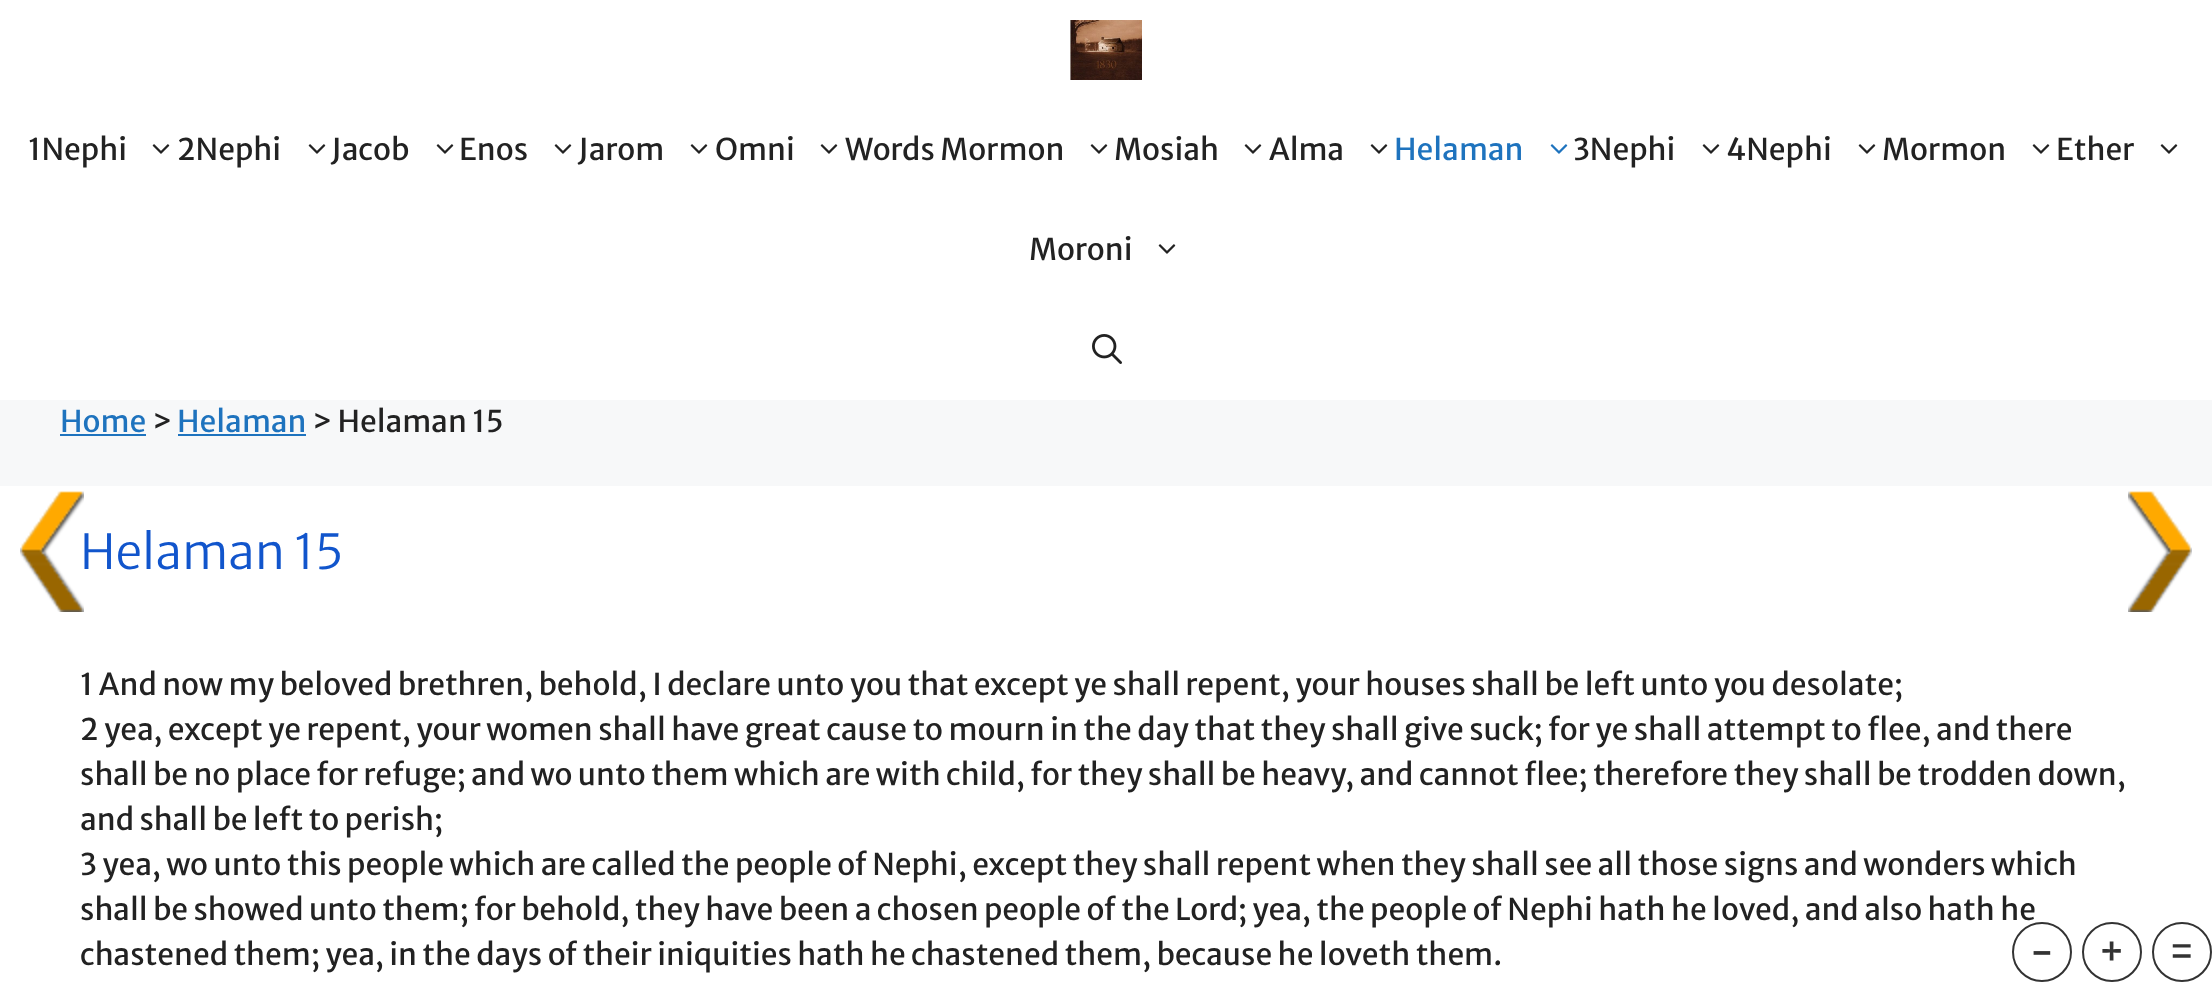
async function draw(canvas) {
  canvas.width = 2212;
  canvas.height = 982;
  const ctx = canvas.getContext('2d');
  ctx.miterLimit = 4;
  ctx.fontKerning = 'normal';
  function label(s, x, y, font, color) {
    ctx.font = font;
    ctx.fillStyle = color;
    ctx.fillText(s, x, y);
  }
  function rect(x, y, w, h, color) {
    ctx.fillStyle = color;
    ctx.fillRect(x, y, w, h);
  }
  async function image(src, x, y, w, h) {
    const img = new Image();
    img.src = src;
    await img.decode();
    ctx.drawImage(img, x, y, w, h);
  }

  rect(0, 0, 2212, 982, '#f7f8f9');
  rect(0, 0, 2212, 400, '#fff');
  await image('assets/img1.png', 1070, 20, 72, 60);
  label('1Nephi', 28, 160, '30px Merriweather Sans', '#222');
  await image('assets/img2.png', 152, 144, 18, 10);
  label('2Nephi', 177, 160, '30px Merriweather Sans', '#222');
  await image('assets/img2.png', 308, 144, 18, 10);
  label('Jacob', 331, 160, '30px Merriweather Sans', '#222');
  await image('assets/img2.png', 436, 144, 18, 10);
  label('Enos', 459, 160, '30px Merriweather Sans', '#222');
  await image('assets/img2.png', 554, 144, 18, 10);
  label('Jarom', 578, 160, '30px Merriweather Sans', '#222');
  await image('assets/img2.png', 690, 144, 18, 10);
  label('Omni', 715, 160, '30px Merriweather Sans', '#222');
  await image('assets/img2.png', 820, 144, 18, 10);
  label('Words Mormon', 845, 160, '30px Merriweather Sans', '#222');
  await image('assets/img2.png', 1090, 144, 18, 10);
  label('Mosiah', 1114, 160, '30px Merriweather Sans', '#222');
  await image('assets/img2.png', 1244, 144, 18, 10);
  label('Alma', 1269, 160, '30px Merriweather Sans', '#222');
  await image('assets/img2.png', 1370, 144, 18, 10);
  label('Helaman', 1394, 160, '30px Merriweather Sans', '#1e73be');
  await image('assets/img3.png', 1550, 144, 18, 10);
  label('3Nephi', 1573, 160, '30px Merriweather Sans', '#222');
  await image('assets/img2.png', 1702, 144, 18, 10);
  label('4Nephi', 1726, 160, '30px Merriweather Sans', '#222');
  await image('assets/img2.png', 1858, 144, 18, 10);
  label('Mormon', 1882, 160, '30px Merriweather Sans', '#222');
  await image('assets/img2.png', 2032, 144, 18, 10);
  label('Ether', 2056, 160, '30px Merriweather Sans', '#222');
  await image('assets/img2.png', 2160, 144, 18, 10);
  label('Moroni', 1029, 260, '30px Merriweather Sans', '#222');
  await image('assets/img2.png', 1158, 244, 18, 10);
  await image('assets/img4.png', 1092, 334, 30, 30);
  label('Home', 60, 432, '30px Merriweather Sans', '#1e73be');
  rect(60, 434, 86, 2, '#1e73be');
  label('>', 152, 432, '30px Merriweather Sans', '#222');
  label('Helaman', 177, 432, '30px Merriweather Sans', '#1e73be');
  rect(178, 434, 128, 2, '#1e73be');
  label('> Helaman 15', 312, 432, '30px Merriweather Sans', '#222');
  rect(0, 486, 2212, 496, '#fff');
  await image('assets/img5.png', 20, 491, 64, 121);
  label('Helaman 15', 80, 569, '300 48px Merriweather Sans', '#15c');
  label('1 And now my beloved brethren, behold, I declare unto you that except ye shall repent, your houses shall be left unto you desolate;', 80, 695, '30px Merriweather Sans', '#222');
  label('2 yea, except ye repent, your women shall have great cause to mourn in the day that they shall give suck; for ye shall attempt to flee, and there', 80, 740, '30px Merriweather Sans', '#222');
  label('shall be no place for refuge; and wo unto them which are with child, for they shall be heavy, and cannot flee; therefore they shall be trodden down,', 80, 785, '30px Merriweather Sans', '#222');
  label('and shall be left to perish;', 80, 830, '30px Merriweather Sans', '#222');
  label('3 yea, wo unto this people which are called the people of Nephi, except they shall repent when they shall see all those signs and wonders which', 80, 875, '30px Merriweather Sans', '#222');
  label('shall be showed unto them; for behold, they have been a chosen people of the Lord; yea, the people of Nephi hath he loved, and also hath he', 80, 920, '30px Merriweather Sans', '#222');
  label('chastened them; yea, in the days of their iniquities hath he chastened them, because he loveth them.', 80, 965, '30px Merriweather Sans', '#222');
  await image('assets/img6.png', 2128, 491, 64, 121);
  ctx.beginPath();
  ctx.arc(2042, 952, 29, 0, 2 * Math.PI);
  ctx.strokeStyle = '#333';
  ctx.lineWidth = 2;
  ctx.stroke();
  label('-', 2030, 966, '40px Merriweather Sans', '#333');
  ctx.beginPath();
  ctx.arc(2112, 952, 29, 0, 2 * Math.PI);
  ctx.stroke();
  label('+', 2098, 966, '40px Merriweather Sans', '#333');
  ctx.beginPath();
  ctx.arc(2182, 952, 29, 0, 2 * Math.PI);
  ctx.stroke();
  label('=', 2168, 966, '40px Merriweather Sans', '#333');
}

draw(document.querySelector('canvas'));
